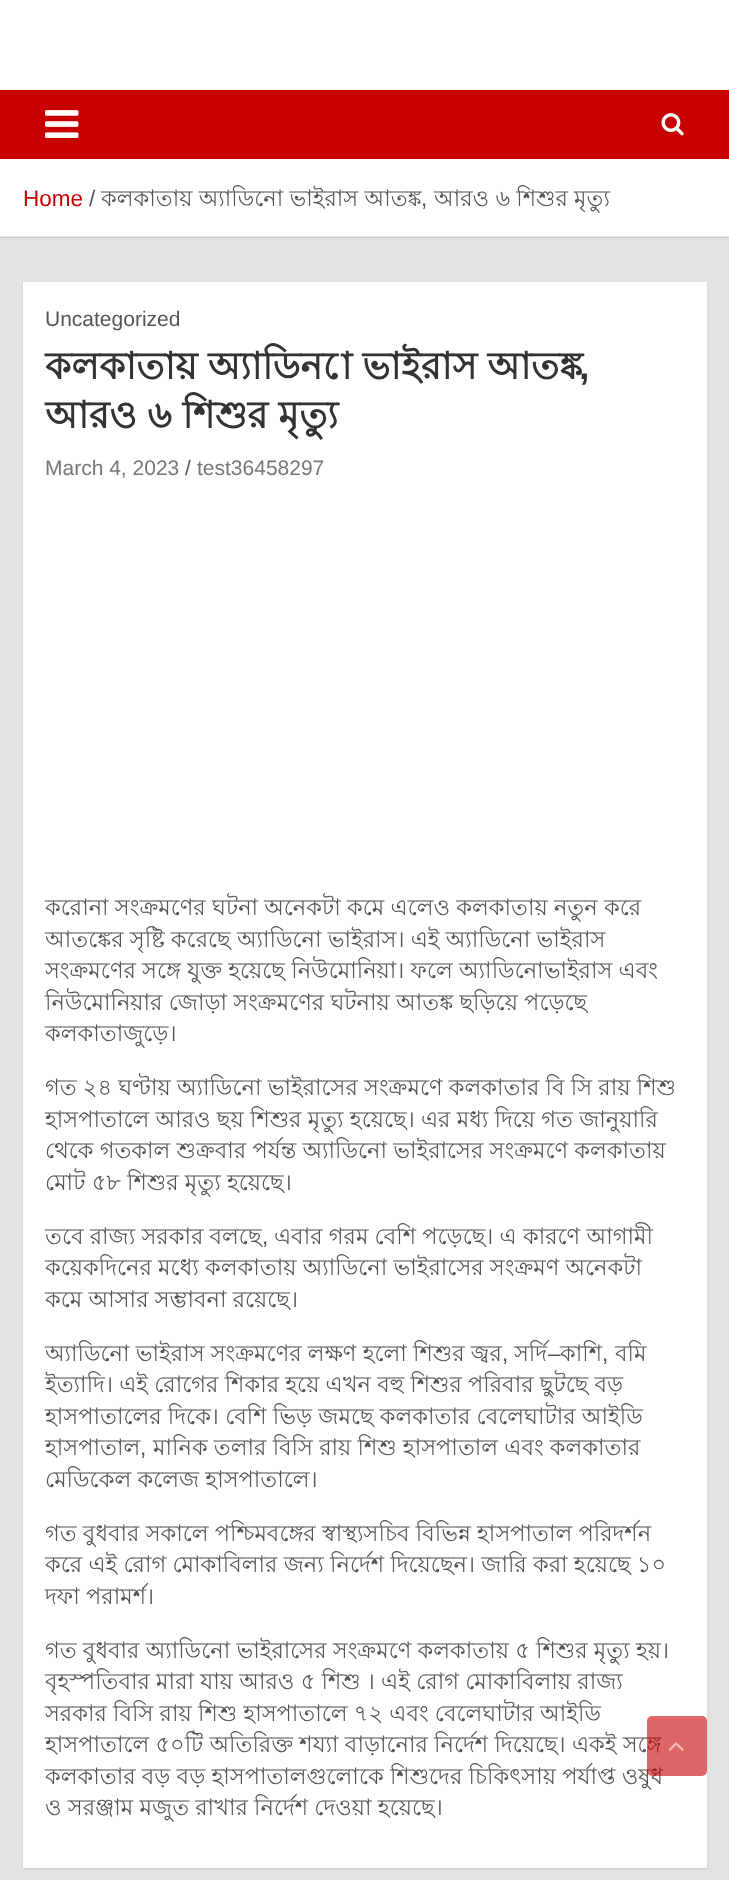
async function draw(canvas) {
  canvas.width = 729;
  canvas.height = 1880;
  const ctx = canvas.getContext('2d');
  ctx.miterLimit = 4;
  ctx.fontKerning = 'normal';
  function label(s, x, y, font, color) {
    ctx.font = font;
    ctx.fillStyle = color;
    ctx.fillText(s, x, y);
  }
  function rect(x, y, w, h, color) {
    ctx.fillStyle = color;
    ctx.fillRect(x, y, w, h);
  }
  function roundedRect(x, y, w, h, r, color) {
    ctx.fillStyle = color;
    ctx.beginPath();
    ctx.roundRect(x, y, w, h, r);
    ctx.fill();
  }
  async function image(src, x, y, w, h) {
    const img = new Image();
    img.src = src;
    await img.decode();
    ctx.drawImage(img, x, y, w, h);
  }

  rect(0, 0, 729, 1880, '#e2e2e2');
  rect(0, 237, 729, 1, '#cbcbcb');
  rect(0, 0, 729, 90, '#fff');
  rect(0, 90, 729, 69, '#c80000');
  await image('assets/img1.png', 45, 110, 34, 28);
  await image('assets/img2.png', 661, 113, 23, 23);
  rect(0, 159, 729, 77, '#fff');
  rect(0, 236, 729, 1, '#e6e6e6');
  label('Home', 23, 206, '22.5px Liberation Sans', '#c80000');
  label('/', 89, 206, '22.5px Liberation Sans', '#555');
  label('কলকাতায় অ্যাডিনো ভাইরাস আতঙ্ক', 101, 206, '22.5px Lohit Bengali', '#555');
  label(',', 421, 206, '22.5px Liberation Sans', '#555');
  label('আরও ৬ শিশুর মৃত্যু', 434, 206, '22.5px Lohit Bengali', '#555');
  ctx.fillStyle = '#0000001a';
  ctx.filter = 'blur(1px)';
  ctx.beginPath();
  ctx.rect(23, 284, 684, 1585);
  ctx.fill();
  ctx.filter = 'none';
  rect(23, 282, 684, 1586, '#fff');
  label('Uncategorized', 45, 326, '21px Liberation Sans', '#555');
  label('কলকাতায় অ্যাডিনো ভাইরাস আতঙ্ক', 45, 379, 'bold 37.5px Lohit Bengali', '#333');
  label(',', 579, 379, 'bold 37.5px Liberation Sans', '#333');
  label('আরও ৬ শিশুর মৃত্যু', 45, 428, 'bold 37.5px Lohit Bengali', '#333');
  label('March 4, 2023', 45, 475, '21px Liberation Sans', '#777');
  label('/', 185, 475, '21px Liberation Sans', '#555');
  label('test36458297', 197, 475, '21px Liberation Sans', '#777');
  label('করোনা সংক্রমণের ঘটনা অনেকটা কমে এলেও কলকাতায় নতুন করে', 45, 915, '22.5px Lohit Bengali', '#555');
  label('আতঙ্কের সৃষ্টি করেছে অ্যাডিনো ভাইরাস। এই অ্যাডিনো ভাইরাস', 45, 947, '22.5px Lohit Bengali', '#555');
  label('সংক্রমণের সঙ্গে যুক্ত হয়েছে নিউমোনিয়া। ফলে অ্যাডিনোভাইরাস এবং', 45, 978, '22.5px Lohit Bengali', '#555');
  label('নিউমোনিয়ার জোড়া সংক্রমণের ঘটনায় আতঙ্ক ছড়িয়ে পড়েছে', 45, 1010, '22.5px Lohit Bengali', '#555');
  label('কলকাতাজুড়ে।', 45, 1041, '22.5px Lohit Bengali', '#555');
  label('গত ২৪ ঘণ্টায় অ্যাডিনো ভাইরাসের সংক্রমণে কলকাতার বি সি রায় শিশু', 45, 1095, '22.5px Lohit Bengali', '#555');
  label('হাসপাতালে আরও ছয় শিশুর মৃত্যু হয়েছে। এর মধ্য দিয়ে গত জানুয়ারি', 45, 1127, '22.5px Lohit Bengali', '#555');
  label('থেকে গতকাল শুক্রবার পর্যন্ত অ্যাডিনো ভাইরাসের সংক্রমণে কলকাতায়', 45, 1158, '22.5px Lohit Bengali', '#555');
  label('মোট ৫৮ শিশুর মৃত্যু হয়েছে।', 45, 1190, '22.5px Lohit Bengali', '#555');
  label('তবে রাজ্য সরকার বলছে', 45, 1244, '22.5px Lohit Bengali', '#555');
  label(',', 262, 1244, '22.5px Liberation Sans', '#555');
  label('এবার গরম বেশি পড়েছে। এ কারণে আগামী', 274, 1244, '22.5px Lohit Bengali', '#555');
  label('কয়েকদিনের মধ্যে কলকাতায় অ্যাডিনো ভাইরাসের সংক্রমণ অনেকটা', 45, 1275, '22.5px Lohit Bengali', '#555');
  label('কমে আসার সম্ভাবনা রয়েছে।', 45, 1307, '22.5px Lohit Bengali', '#555');
  label('অ্যাডিনো ভাইরাস সংক্রমণের লক্ষণ হলো শিশুর জ্বর', 45, 1361, '22.5px Lohit Bengali', '#555');
  label('সর্দি', 514, 1361, '22.5px Lohit Bengali', '#555');
  label('–', 548, 1361, '22.5px Liberation Sans', '#555');
  label('কাশি', 560, 1361, '22.5px Lohit Bengali', '#555');
  label('বমি', 615, 1361, '22.5px Lohit Bengali', '#555');
  label(',', 502, 1361, '22.5px Liberation Sans', '#555');
  label(',', 602, 1361, '22.5px Liberation Sans', '#555');
  label('ইত্যাদি। এই রোগের শিকার হয়ে এখন বহু শিশুর পরিবার ছুটছে বড়', 45, 1392, '22.5px Lohit Bengali', '#555');
  label('হাসপাতালের দিকে। বেশি ভিড় জমছে কলকাতার বেলেঘাটার আইডি', 45, 1424, '22.5px Lohit Bengali', '#555');
  label('হাসপাতাল', 45, 1455, '22.5px Lohit Bengali', '#555');
  label(',', 140, 1455, '22.5px Liberation Sans', '#555');
  label('মানিক তলার বিসি রায় শিশু হাসপাতাল এবং কলকাতার', 153, 1455, '22.5px Lohit Bengali', '#555');
  label('মেডিকেল কলেজ হাসপাতালে।', 45, 1487, '22.5px Lohit Bengali', '#555');
  label('গত বুধবার সকালে পশ্চিমবঙ্গের স্বাস্থ্যসচিব বিভিন্ন হাসপাতাল পরিদর্শন', 45, 1541, '22.5px Lohit Bengali', '#555');
  label('করে এই রোগ মোকাবিলার জন্য নির্দেশ দিয়েছেন। জারি করা হয়েছে ১০', 45, 1572, '22.5px Lohit Bengali', '#555');
  label('দফা পরামর্শ।', 45, 1604, '22.5px Lohit Bengali', '#555');
  label('গত বুধবার অ্যাডিনো ভাইরাসের সংক্রমণে কলকাতায় ৫ শিশুর মৃত্যু হয়।', 45, 1658, '22.5px Lohit Bengali', '#555');
  label('বৃহস্পতিবার মারা যায় আরও ৫ শিশু । এই রোগ মোকাবিলায় রাজ্য', 45, 1689, '22.5px Lohit Bengali', '#555');
  label('সরকার বিসি রায় শিশু হাসপাতালে ৭২ এবং বেলেঘাটার আইডি', 45, 1721, '22.5px Lohit Bengali', '#555');
  label('হাসপাতালে ৫০টি অতিরিক্ত শয্যা বাড়ানোর নির্দেশ দিয়েছে। একই সঙ্গে', 45, 1752, '22.5px Lohit Bengali', '#555');
  label('কলকাতার বড় বড় হাসপাতালগুলোকে শিশুদের চিকিৎসায় পর্যাপ্ত ওষুধ', 45, 1784, '22.5px Lohit Bengali', '#555');
  label('ও সরঞ্জাম মজুত রাখার নির্দেশ দেওয়া হয়েছে।', 45, 1815, '22.5px Lohit Bengali', '#555');
  roundedRect(647, 1716, 60, 60, 5, '#c8000099');
  await image('assets/img3.png', 668, 1742, 16, 9);
}

draw(document.querySelector('canvas'));
